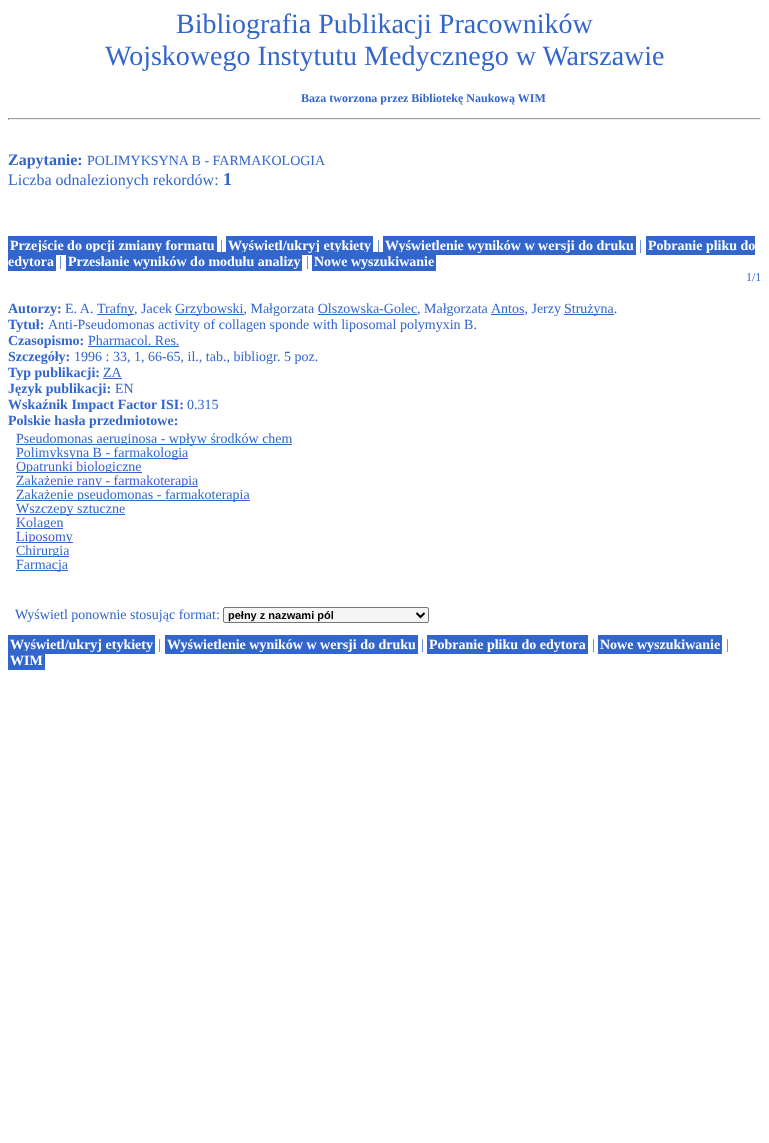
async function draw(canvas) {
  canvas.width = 769;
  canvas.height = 1143;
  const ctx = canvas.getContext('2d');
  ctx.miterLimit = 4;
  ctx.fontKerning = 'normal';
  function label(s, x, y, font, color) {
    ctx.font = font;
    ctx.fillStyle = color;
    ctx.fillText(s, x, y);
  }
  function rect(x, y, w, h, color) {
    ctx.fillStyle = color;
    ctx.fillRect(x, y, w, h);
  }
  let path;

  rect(0, 0, 769, 1143, '#fff');
  label('Bibliografia Publikacji Pracowników', 176, 33, '28px Liberation Serif', '#36c');
  label('Wojskowego Instytutu Medycznego w Warszawie', 105, 65, '28px Liberation Serif', '#36c');
  label('Baza tworzona przez Bibliotekę Naukową WIM', 301, 102, 'bold 12px Liberation Serif', '#36c');
  rect(8, 118, 753, 1, '#9f9f9f');
  rect(760, 118, 1, 2, '#eee');
  rect(8, 119, 753, 1, '#eee');
  rect(8, 118, 1, 2, '#9f9f9f');
  label('Zapytanie:', 8, 165, 'bold 16px Liberation Serif', '#36c');
  label('POLIMYKSYNA B - FARMAKOLOGIA', 87, 165, '14px Liberation Serif', '#36c');
  label('Liczba odnalezionych rekordów:', 8, 185, '16px Liberation Serif', '#36c');
  label('1', 223, 185, 'bold 18px Liberation Serif', '#36c');
  rect(8, 236, 209, 19, '#36c');
  label('Przejście do opcji zmiany formatu', 10, 250, 'bold 14px Liberation Serif', '#fff');
  label('|', 220, 250, '14px Liberation Serif', '#36c');
  rect(226, 236, 147, 19, '#36c');
  label('Wyświetl/ukryj etykiety', 228, 250, 'bold 14px Liberation Serif', '#fff');
  label('|', 377, 250, '14px Liberation Serif', '#36c');
  rect(383, 236, 253, 19, '#36c');
  label('Wyświetlenie wyników w wersji do druku', 385, 250, 'bold 14px Liberation Serif', '#fff');
  label('|', 639, 250, '14px Liberation Serif', '#36c');
  rect(646, 236, 109, 19, '#36c');
  label('Pobranie pliku do', 648, 250, 'bold 14px Liberation Serif', '#fff');
  rect(8, 252, 48, 19, '#36c');
  label('edytora', 8, 266, 'bold 14px Liberation Serif', '#fff');
  label('|', 59, 266, '14px Liberation Serif', '#36c');
  rect(66, 252, 236, 19, '#36c');
  label('Przesłanie wyników do modułu analizy', 68, 266, 'bold 14px Liberation Serif', '#fff');
  label('|', 306, 266, '14px Liberation Serif', '#36c');
  rect(312, 252, 124, 19, '#36c');
  label('Nowe wyszukiwanie', 314, 266, 'bold 14px Liberation Serif', '#fff');
  label('1/1', 746, 281, '12px Liberation Serif', '#36c');
  label('Autorzy:', 8, 313, 'bold 14px Liberation Serif', '#36c');
  label('E. A.', 65, 313, '14px Liberation Serif', '#36c');
  rect(97, 314, 37, 1, '#36c');
  label('Trafny', 97, 313, '14px Liberation Serif', '#36c');
  label(', Jacek', 134, 313, '14px Liberation Serif', '#36c');
  rect(175, 314, 69, 1, '#36c');
  label('Grzybowski, Małgorzata Olszowska-Golec', 175, 313, '14px Liberation Serif', '#36c');
  rect(318, 314, 99, 1, '#36c');
  label(', Małgorzata', 417, 313, '14px Liberation Serif', '#36c');
  rect(491, 314, 33, 1, '#36c');
  label('Antos, Jerzy', 491, 313, '14px Liberation Serif', '#36c');
  rect(564, 314, 50, 1, '#36c');
  label('Strużyna.', 564, 313, '14px Liberation Serif', '#36c');
  label('Tytuł:', 8, 329, 'bold 14px Liberation Serif', '#36c');
  label('Anti-Pseudomonas activity of collagen sponde with liposomal polymyxin B.', 48, 329, '14px Liberation Serif', '#36c');
  label('Czasopismo:', 8, 345, 'bold 14px Liberation Serif', '#36c');
  label('Pharmacol. Res.', 88, 345, '14px Liberation Serif', '#36c');
  rect(88, 346, 91, 1, '#36c');
  label('Szczegóły:', 8, 361, 'bold 14px Liberation Serif', '#36c');
  label('1996 : 33, 1, 66-65, il., tab., bibliogr. 5 poz.', 74, 361, '14px Liberation Serif', '#36c');
  label('Typ publikacji:', 8, 377, 'bold 14px Liberation Serif', '#36c');
  label('ZA', 103, 377, '14px Liberation Serif', '#36c');
  rect(103, 378, 19, 1, '#36c');
  label('Język publikacji:', 8, 393, 'bold 14px Liberation Serif', '#36c');
  label('EN', 115, 393, '14px Liberation Serif', '#36c');
  label('Wskaźnik Impact Factor ISI:', 8, 409, 'bold 14px Liberation Serif', '#36c');
  label('0.315', 187, 409, '14px Liberation Serif', '#36c');
  label('Polskie hasła przedmiotowe:', 8, 425, 'bold 14px Liberation Serif', '#36c');
  rect(16, 444, 276, 1, '#36c');
  label('Pseudomonas aeruginosa - wpływ środków chem', 16, 443, '14px Liberation Serif', '#36c');
  rect(16, 458, 172, 1, '#36c');
  label('Polimyksyna B - farmakologia', 16, 457, '14px Liberation Serif', '#36c');
  rect(121, 445, 62, 1, '#fff');
  rect(16, 472, 126, 1, '#36c');
  label('Opatrunki biologiczne', 16, 471, '14px Liberation Serif', '#36c');
  rect(49, 459, 23, 1, '#fff');
  rect(16, 486, 182, 1, '#36c');
  label('Zakażenie rany - farmakoterapia', 16, 485, '14px Liberation Serif', '#36c');
  rect(26, 473, 86, 1, '#fff');
  rect(16, 500, 234, 1, '#36c');
  label('Zakażenie pseudomonas - farmakoterapia', 16, 499, '14px Liberation Serif', '#36c');
  rect(95, 487, 90, 1, '#fff');
  rect(16, 514, 109, 1, '#36c');
  label('Wszczepy sztuczne', 16, 513, '14px Liberation Serif', '#36c');
  rect(77, 501, 4, 1, '#fff');
  rect(16, 528, 47, 1, '#36c');
  label('Kolagen', 16, 527, '14px Liberation Serif', '#36c');
  rect(59, 515, 4, 1, '#fff');
  rect(16, 542, 57, 1, '#36c');
  label('Liposomy', 16, 541, '14px Liberation Serif', '#36c');
  rect(44, 529, 6, 1, '#fff');
  rect(16, 556, 53, 1, '#36c');
  label('Chirurgia', 16, 555, '14px Liberation Serif', '#36c');
  rect(28, 543, 41, 1, '#fff');
  rect(16, 570, 52, 1, '#36c');
  label('Farmacja', 16, 569, '14px Liberation Serif', '#36c');
  rect(53, 557, 6, 1, '#fff');
  label('Wyświetl ponownie stosując format:', 15, 619, '14px Liberation Serif', '#36c');
  ctx.fillStyle = '#f5f5f5';
  ctx.beginPath();
  ctx.roundRect(223.5, 607.5, 205, 15, 1.5);
  ctx.fill();
  ctx.strokeStyle = '#767676';
  ctx.stroke();
  path = new Path2D('M416.5 613L420.5 617L424.5 613');
  ctx.strokeStyle = '#000';
  ctx.lineWidth = 2;
  ctx.stroke(path);
  label('pełny z nazwami pól', 228, 619, 'bold 11px Liberation Sans', '#000');
  rect(8, 635, 147, 19, '#36c');
  label('Wyświetl/ukryj etykiety', 10, 649, 'bold 14px Liberation Serif', '#fff');
  label('|', 158, 649, '14px Liberation Serif', '#36c');
  rect(165, 635, 253, 19, '#36c');
  label('Wyświetlenie wyników w wersji do druku', 167, 649, 'bold 14px Liberation Serif', '#fff');
  label('|', 421, 649, '14px Liberation Serif', '#36c');
  rect(427, 635, 161, 19, '#36c');
  label('Pobranie pliku do edytora', 429, 649, 'bold 14px Liberation Serif', '#fff');
  label('|', 592, 649, '14px Liberation Serif', '#36c');
  rect(598, 635, 124, 19, '#36c');
  label('Nowe wyszukiwanie', 600, 649, 'bold 14px Liberation Serif', '#fff');
  label('|', 726, 649, '14px Liberation Serif', '#36c');
  rect(8, 651, 37, 19, '#36c');
  label('WIM', 10, 665, 'bold 14px Liberation Serif', '#fff');
}

draw(document.querySelector('canvas'));
